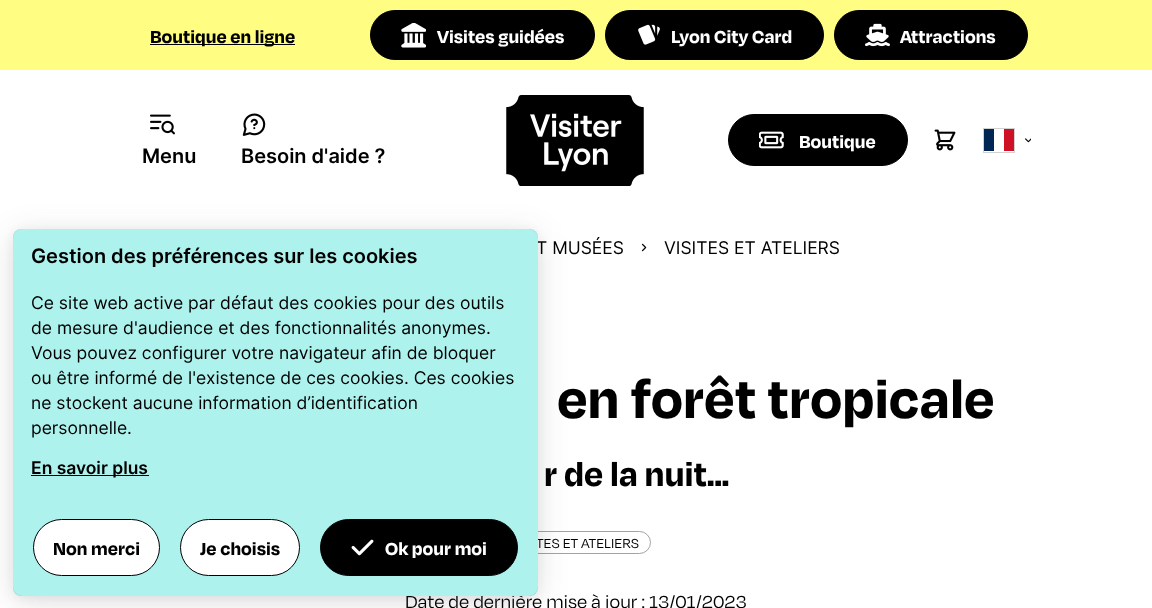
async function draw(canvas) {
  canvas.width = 1152;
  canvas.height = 608;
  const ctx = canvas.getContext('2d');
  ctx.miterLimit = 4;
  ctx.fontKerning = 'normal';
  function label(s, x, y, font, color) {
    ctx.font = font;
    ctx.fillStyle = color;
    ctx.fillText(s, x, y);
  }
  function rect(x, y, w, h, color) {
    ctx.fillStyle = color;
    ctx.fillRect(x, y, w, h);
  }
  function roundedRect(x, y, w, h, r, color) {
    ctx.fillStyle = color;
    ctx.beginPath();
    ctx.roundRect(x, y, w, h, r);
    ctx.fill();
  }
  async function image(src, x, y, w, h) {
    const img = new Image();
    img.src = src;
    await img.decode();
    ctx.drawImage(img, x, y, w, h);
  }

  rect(0, 0, 1152, 608, '#fff');
  rect(0, 0, 1152, 70, '#fffe83');
  rect(150, 44, 145, 1, '#000');
  label('Boutique en ligne', 150, 43, 'bold 20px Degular', '#000');
  ctx.beginPath();
  ctx.roundRect(370.5, 10.5, 224, 49, 24.5);
  ctx.fill();
  ctx.strokeStyle = '#000';
  ctx.stroke();
  await image('assets/img1.png', 401, 23, 25, 25);
  label('Visites guidées', 437, 43, 'bold 20px Degular', '#fff');
  ctx.fillStyle = '#000';
  ctx.beginPath();
  ctx.roundRect(605.5, 10.5, 218, 49, 24.5);
  ctx.fill();
  ctx.stroke();
  await image('assets/img2.png', 638, 24, 22, 21);
  label('Lyon City Card', 671, 43, 'bold 20px Degular', '#fff');
  ctx.fillStyle = '#000';
  ctx.beginPath();
  ctx.roundRect(834.5, 10.5, 193, 49, 24.5);
  ctx.fill();
  ctx.stroke();
  await image('assets/img3.png', 865, 23, 25, 24);
  label('Attractions', 900, 43, 'bold 20px Degular', '#fff');
  await image('assets/img4.png', 506, 95, 138, 91);
  ctx.fillStyle = '#000';
  ctx.beginPath();
  ctx.roundRect(728.5, 114.5, 179, 51, 25.5);
  ctx.fill();
  ctx.stroke();
  await image('assets/img5.png', 759, 131, 25, 18);
  label('Boutique', 799, 148, 'bold 20px Degular', '#fff');
  await image('assets/img6.png', 934, 129, 22, 22);
  ctx.strokeStyle = '#d1d1d1';
  ctx.strokeRect(983.5, 128.5, 31, 24);
  rect(984, 129, 10, 22, '#002654');
  rect(1004, 129, 10, 22, '#ce1126');
  await image('assets/img7.png', 1025, 138, 6, 5);
  await image('assets/img8.png', 150, 114, 25, 21);
  label('Menu', 142, 163, '600 20px Inter', '#000');
  await image('assets/img9.png', 242, 113, 24, 23);
  label('Besoin d\'aide ?', 241, 163, '600 20px Inter', '#000');
  label('T MUSÉES', 536, 254, '17.5px Inter', '#000');
  ctx.beginPath();
  ctx.roundRect(501.5, 531.5, 149, 22, 11);
  ctx.strokeStyle = '#a3a3a3';
  ctx.stroke();
  label('TES ET ATELIERS', 536, 548, '15px Degular', '#000');
  label('Date de dernière mise à jour : 13/01/2023', 405, 608, '20px Degular', '#000');
  roundedRect(13, 229, 525, 367, 8, '#aef2ee');
  ctx.fillStyle = '#2925250d';
  ctx.filter = 'blur(4px)';
  ctx.beginPath();
  ctx.roundRect(13, 231, 525, 368, 10);
  ctx.fill();
  ctx.filter = 'none';
  ctx.fillStyle = '#29252526';
  ctx.filter = 'blur(15px)';
  ctx.beginPath();
  ctx.roundRect(13, 234, 525, 367, 10);
  ctx.fill();
  ctx.filter = 'none';
  roundedRect(13, 229, 525, 367, 10, '#aef2ee');
  label('Gestion des préférences sur les cookies', 31, 263, '600 20px Inter', '#000');
  label('Ce site web active par défaut des cookies pour des outils', 31, 309, '17.5px Inter', '#000');
  label('de mesure d\'audience et des fonctionnalités anonymes.', 31, 334, '17.5px Inter', '#000');
  label('Vous pouvez configurer votre navigateur afin de bloquer', 31, 359, '17.5px Inter', '#000');
  label('ou être informé de l\'existence de ces cookies. Ces cookies', 31, 384, '17.5px Inter', '#000');
  label('ne stockent aucune information d’identification', 31, 409, '17.5px Inter', '#000');
  label('personnelle.', 31, 434, '17.5px Inter', '#000');
  rect(31, 475, 118, 1, '#000');
  label('En savoir plus', 31, 474, '600 17.5px Inter', '#000');
  ctx.fillStyle = '#fff';
  ctx.beginPath();
  ctx.roundRect(33.5, 519.5, 126, 56, 28);
  ctx.fill();
  ctx.strokeStyle = '#000';
  ctx.stroke();
  label('Non merci', 53, 555, 'bold 20px Degular', '#000');
  ctx.fillStyle = '#fff';
  ctx.beginPath();
  ctx.roundRect(180.5, 519.5, 119, 56, 28);
  ctx.fill();
  ctx.stroke();
  label('Je choisis', 200, 555, 'bold 20px Degular', '#000');
  ctx.beginPath();
  ctx.roundRect(320.5, 519.5, 197, 56, 28);
  ctx.fill();
  ctx.stroke();
  await image('assets/img10.png', 351, 539, 23, 17);
  label('Ok pour moi', 385, 555, 'bold 20px Degular', '#fff');
  await image('assets/img11.png', 641, 243, 6, 9);
  label('VISITES ET ATELIERS', 664, 254, '17.5px Inter', '#000');
  label('en forêt tropicale', 557, 418, 'bold 60px Degular', '#000');
  label('r de la nuit...', 544, 486, 'bold 37.5px Degular', '#000');
}

draw(document.querySelector('canvas'));
